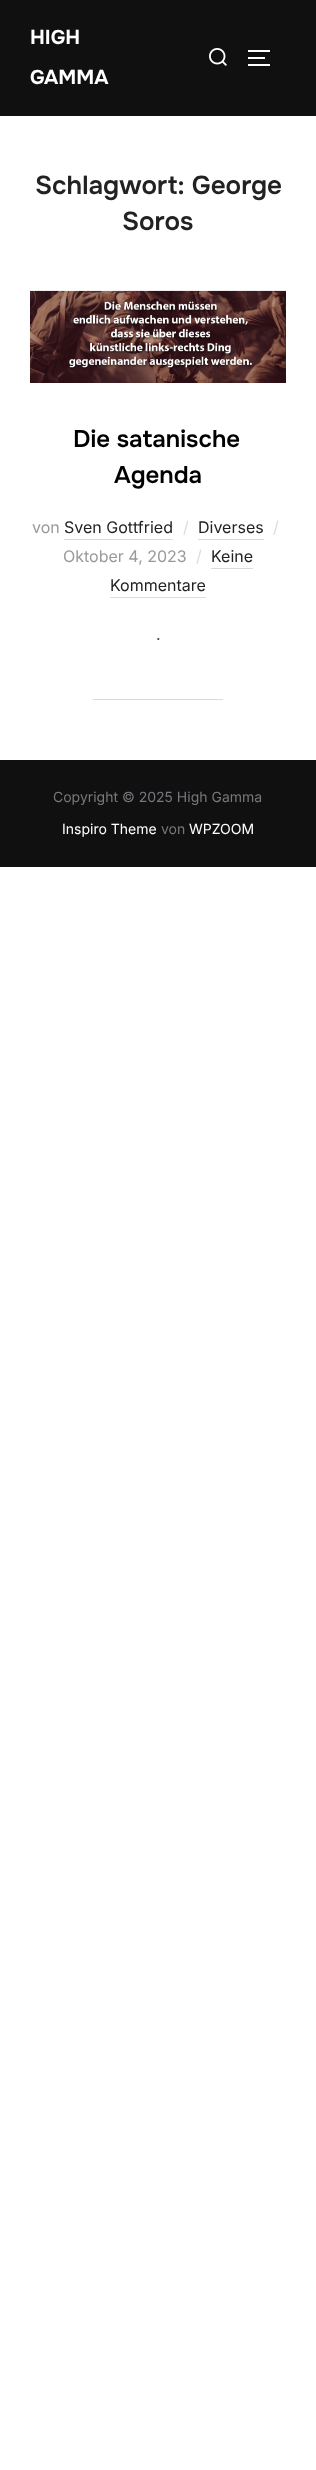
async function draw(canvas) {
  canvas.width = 316;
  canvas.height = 2470;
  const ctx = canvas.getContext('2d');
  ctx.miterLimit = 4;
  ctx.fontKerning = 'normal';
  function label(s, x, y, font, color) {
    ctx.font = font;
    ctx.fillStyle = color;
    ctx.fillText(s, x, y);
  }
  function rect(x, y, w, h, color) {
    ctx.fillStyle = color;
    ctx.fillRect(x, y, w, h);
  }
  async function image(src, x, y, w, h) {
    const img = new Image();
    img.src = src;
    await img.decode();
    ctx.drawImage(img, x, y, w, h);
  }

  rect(0, 0, 316, 2470, '#fff');
  rect(0, 0, 316, 116, '#101010');
  label('HIGH', 30, 44, 'bold 20px Onest', '#fff');
  label('GAMMA', 30, 84, 'bold 20px Onest', '#fff');
  await image('assets/img1.png', 209, 48, 18, 18);
  rect(248, 50, 22, 2, '#fff');
  rect(248, 57, 17, 2, '#fff');
  rect(248, 64, 22, 2, '#fff');
  label('Schlagwort: George', 35, 194, '600 26px Onest', '#222');
  label('Soros', 122, 230, '600 26px Onest', '#222');
  await image('assets/img2.png', 30, 290, 256, 93);
  label('Die satanische', 73, 447, '600 24px Onest', '#000');
  label('Agenda', 114, 483, '600 24px Onest', '#000');
  label('von', 32, 533, '16px Inter', '#999');
  label('Sven Gottfried', 64, 533, '16px Inter', '#222');
  rect(64, 539, 109, 1, '#dbdbdb');
  label('/', 183, 533, '16px Inter', '#dbdddd');
  label('Diverses', 198, 533, '16px Inter', '#222');
  rect(198, 539, 66, 1, '#dbdbdb');
  label('/', 273, 533, '16px Inter', '#dbdddd');
  label('Oktober 4, 2023', 63, 562, '16px Inter', '#999');
  label('/', 196, 562, '16px Inter', '#dbdddd');
  label('Keine', 211, 562, '16px Inter', '#222');
  rect(211, 568, 42, 1, '#dbdbdb');
  label('Kommentare', 110, 591, '16px Inter', '#222');
  rect(110, 597, 96, 1, '#dbdbdb');
  label('.', 156, 640, '16px Inter', '#444');
  rect(93, 699, 130, 1, '#dbdbdb');
  rect(0, 760, 316, 107, '#101010');
  label('Copyright © 2025 High Gamma', 53, 802, '14px Inter', '#78787f');
  label('Inspiro Theme', 62, 834, '14px Inter', '#fff');
  label('von', 161, 834, '14px Inter', '#78787f');
  label('WPZOOM', 189, 834, '14px Inter', '#fff');
}

draw(document.querySelector('canvas'));
